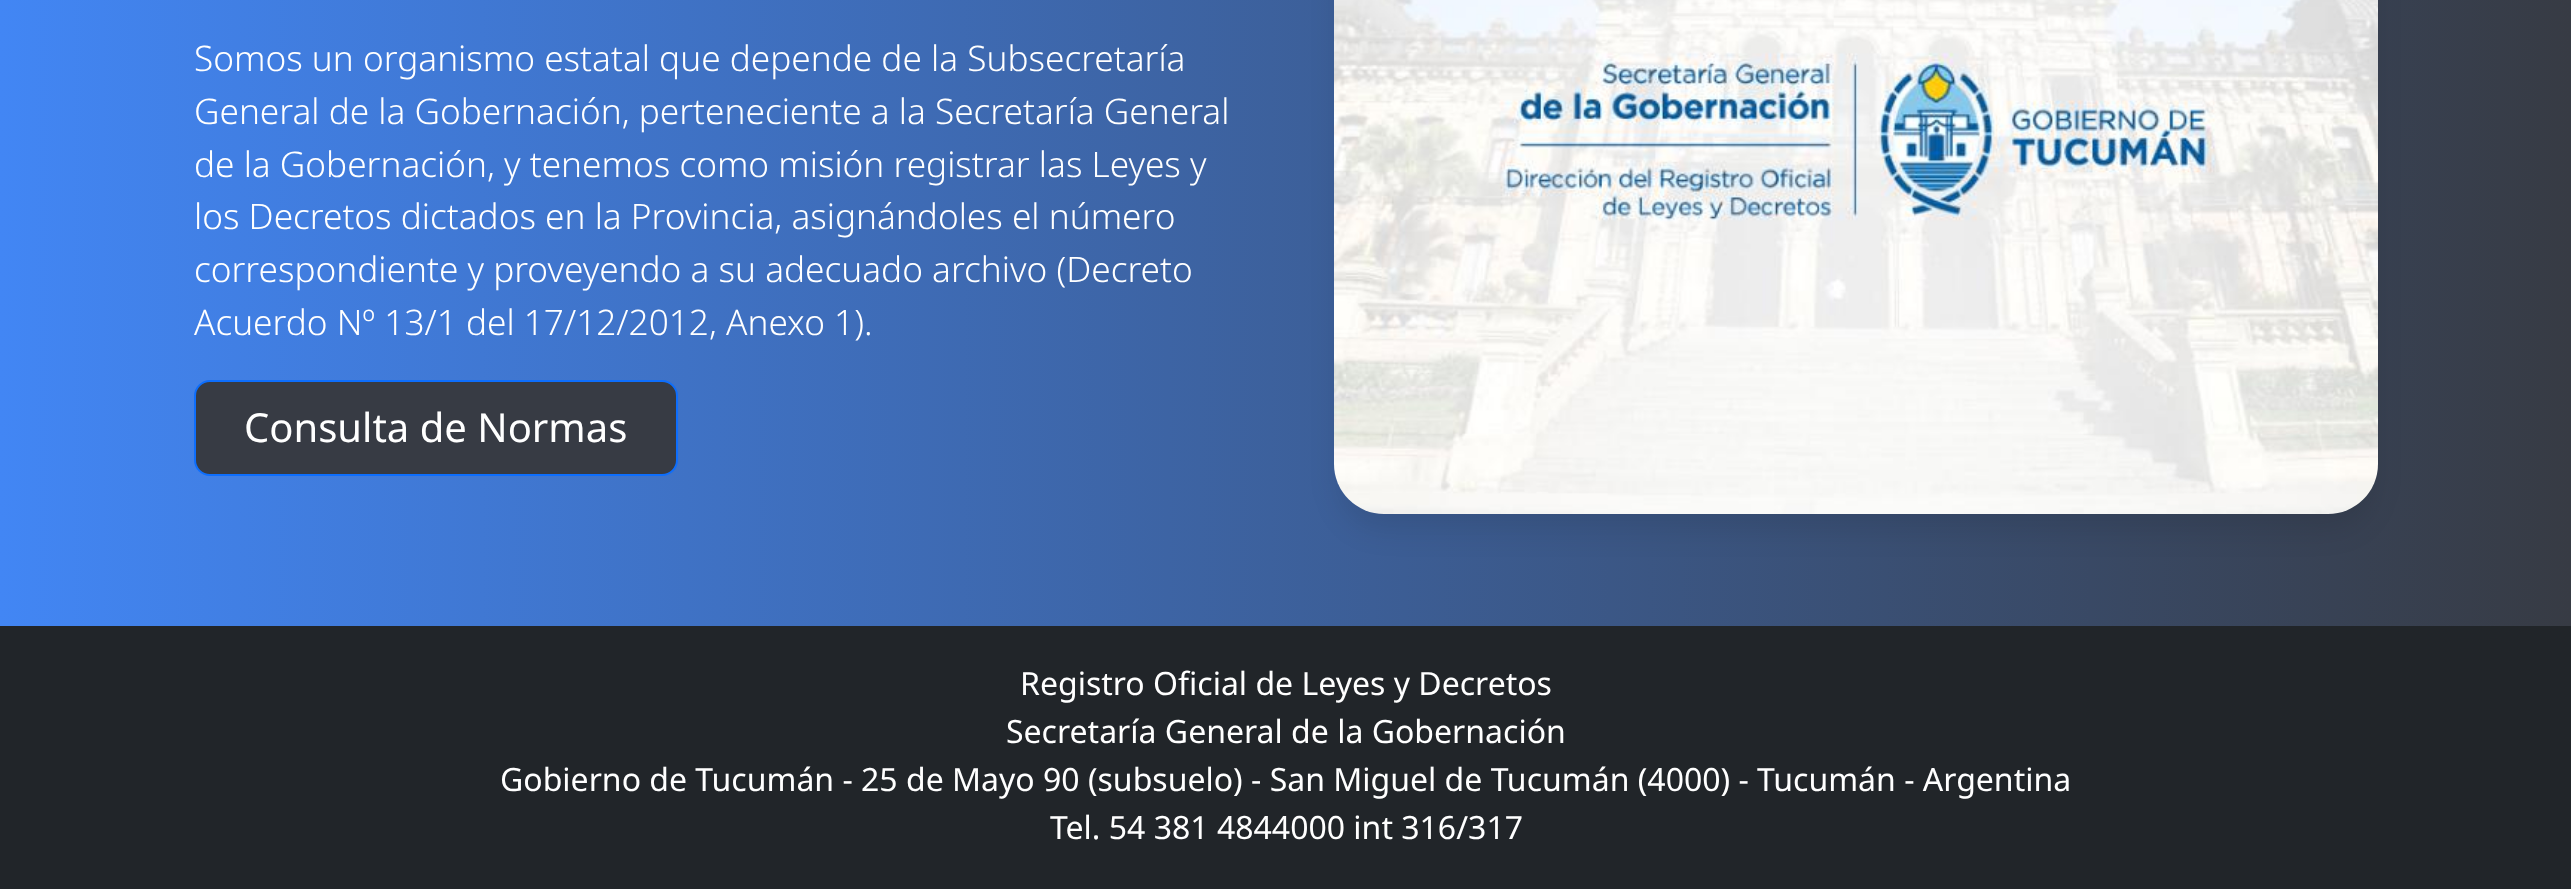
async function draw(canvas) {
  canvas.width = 2571;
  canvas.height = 889;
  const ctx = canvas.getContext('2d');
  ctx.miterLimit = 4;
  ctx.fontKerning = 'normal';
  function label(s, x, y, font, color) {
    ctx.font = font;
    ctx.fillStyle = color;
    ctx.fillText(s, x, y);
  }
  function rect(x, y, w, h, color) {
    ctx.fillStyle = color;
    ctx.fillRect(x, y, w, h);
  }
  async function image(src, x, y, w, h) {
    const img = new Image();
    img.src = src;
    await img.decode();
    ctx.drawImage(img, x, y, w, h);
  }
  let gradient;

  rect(0, 0, 2571, 889, '#fff');
  gradient = ctx.createLinearGradient(0, 141, 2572, 141);
  gradient.addColorStop(0, '#4286f4');
  gradient.addColorStop(1, '#373b44');
  ctx.fillStyle = gradient;
  ctx.fillRect(0, 0, 2571, 626);
  label('Somos un organismo estatal que depende de la Subsecretaría', 194, 71, '300 35.2px Noto Sans', '#fff');
  label('General de la Gobernación, perteneciente a la Secretaría General', 194, 124, '300 35.2px Noto Sans', '#fff');
  label('de la Gobernación, y tenemos como misión registrar las Leyes y', 194, 177, '300 35.2px Noto Sans', '#fff');
  label('los Decretos dictados en la Provincia, asignándoles el número', 194, 229, '300 35.2px Noto Sans', '#fff');
  label('correspondiente y proveyendo a su adecuado archivo (Decreto', 194, 282, '300 35.2px Noto Sans', '#fff');
  label('Acuerdo Nº 13/1 del 17/12/2012, Anexo 1).', 194, 335, '300 35.2px Noto Sans', '#fff');
  ctx.fillStyle = '#373b44';
  ctx.beginPath();
  ctx.roundRect(195, 381, 482, 94, 15);
  ctx.fill();
  ctx.strokeStyle = '#0d6efd';
  ctx.lineWidth = 2;
  ctx.stroke();
  label('Consulta de Normas', 244, 442, '40px Noto Sans', '#fff');
  ctx.fillStyle = '#0000001a';
  ctx.filter = 'blur(15px)';
  ctx.beginPath();
  ctx.roundRect(1340, -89, 1032, 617, 44);
  ctx.fill();
  ctx.filter = 'none';
  await image('assets/img1.png', 1334, 0, 1044, 514);
  rect(0, 626, 2571, 263, '#212529');
  label('Registro Oficial de Leyes y Decretos', 1020, 695, '32px Noto Sans', '#fff');
  label('Secretaría General de la Gobernación', 1006, 743, '32px Noto Sans', '#fff');
  label('Gobierno de Tucumán - 25 de Mayo 90 (subsuelo) - San Miguel de Tucumán (4000) - Tucumán - Argentina', 500, 791, '32px Noto Sans', '#fff');
  label('Tel. 54 381 4844000 int 316/317', 1050, 839, '32px Noto Sans', '#fff');
}

draw(document.querySelector('canvas'));
